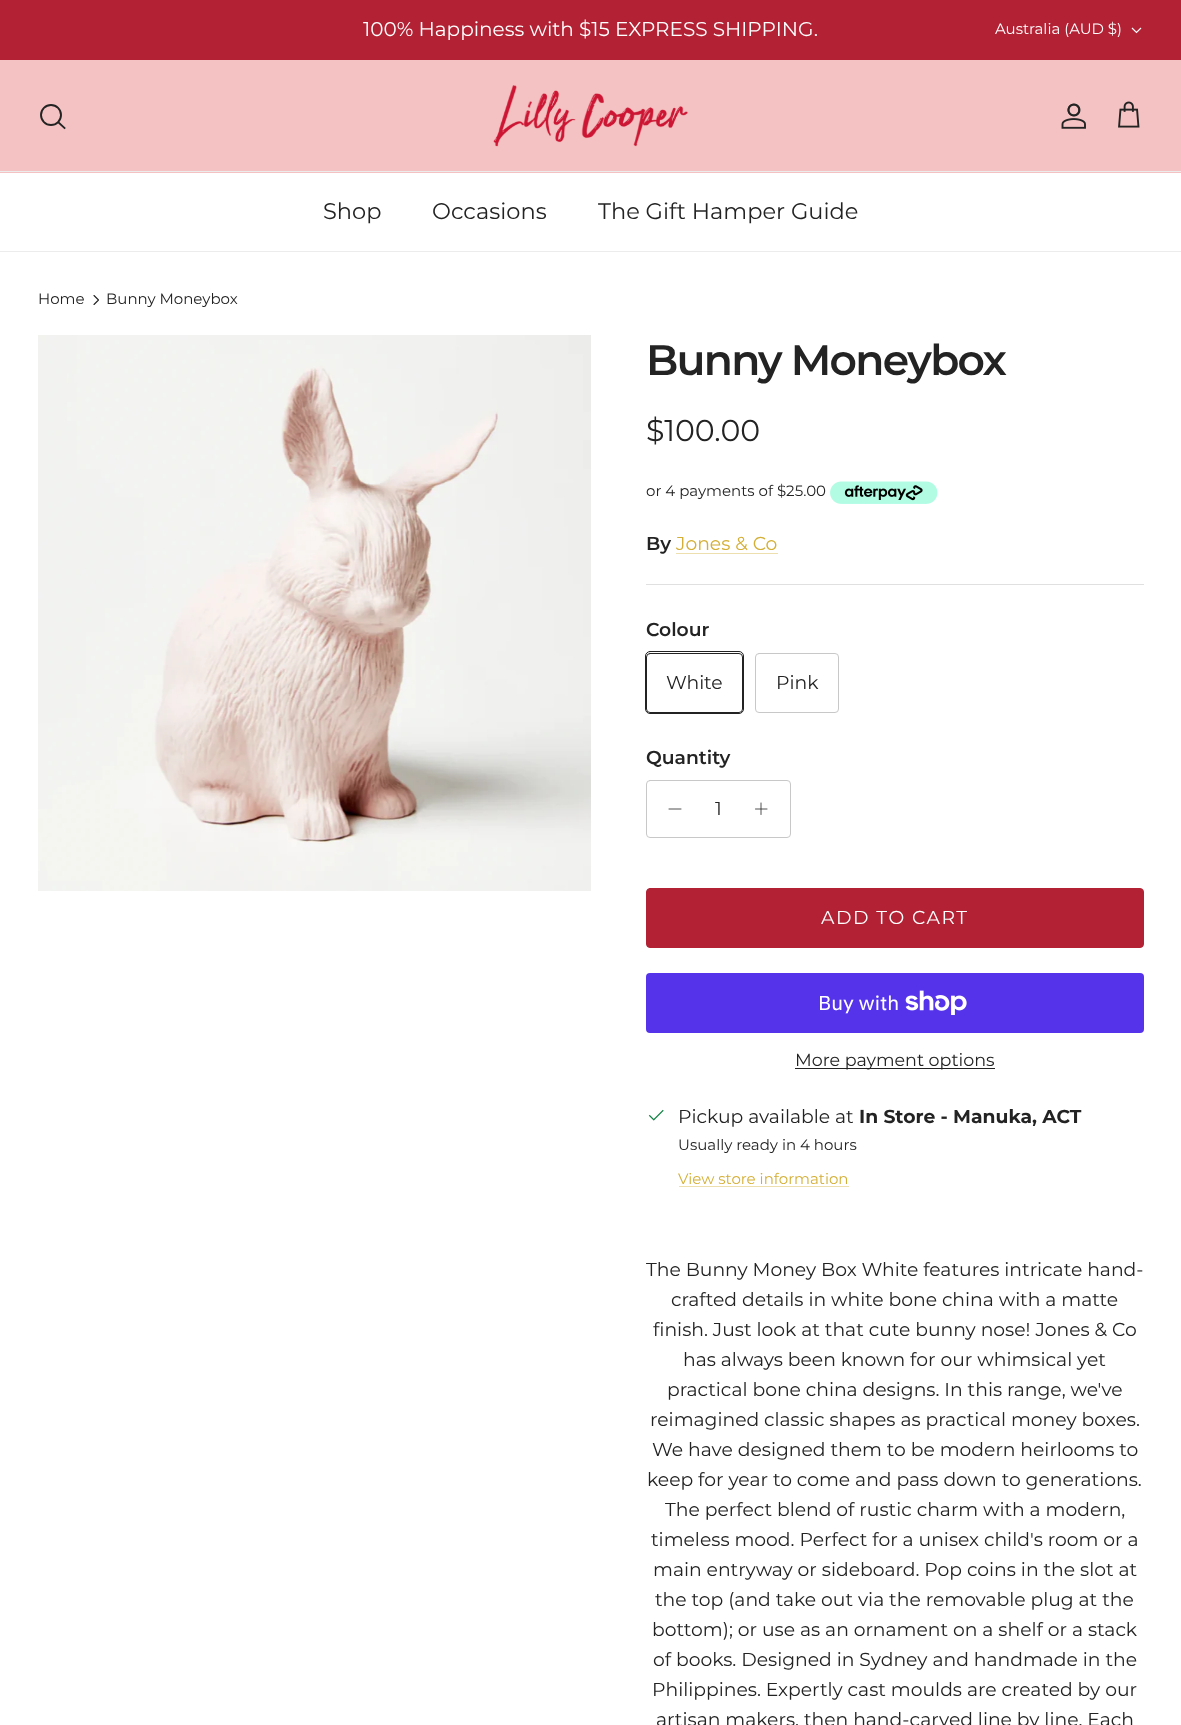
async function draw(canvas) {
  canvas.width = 1181;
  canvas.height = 1725;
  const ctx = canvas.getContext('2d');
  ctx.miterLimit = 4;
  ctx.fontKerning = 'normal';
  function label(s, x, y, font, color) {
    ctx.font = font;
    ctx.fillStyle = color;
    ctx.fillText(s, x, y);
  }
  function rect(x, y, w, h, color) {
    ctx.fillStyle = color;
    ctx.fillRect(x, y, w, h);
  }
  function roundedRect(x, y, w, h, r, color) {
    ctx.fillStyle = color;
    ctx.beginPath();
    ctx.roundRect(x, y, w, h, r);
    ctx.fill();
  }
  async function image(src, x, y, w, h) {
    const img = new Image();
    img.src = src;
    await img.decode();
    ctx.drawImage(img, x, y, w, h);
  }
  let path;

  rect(0, 0, 1181, 1725, '#fff');
  rect(0, 0, 1181, 60, '#b22234');
  label('100% Happiness with $15 EXPRESS SHIPPING.', 363, 36, '20px Montserrat', '#fff');
  label('Australia (AUD $)', 995, 34, '15px Montserrat', '#fff');
  path = new Path2D('M1141 28L1136.5 32.5L1132 28');
  ctx.strokeStyle = '#fff';
  ctx.lineWidth = 1.2;
  ctx.stroke(path);
  rect(0, 60, 1181, 113, '#f4c2c2');
  rect(0, 171, 1181, 1, '#ececec');
  ctx.beginPath();
  ctx.arc(51, 115, 10, 0, 2 * Math.PI);
  ctx.strokeStyle = '#232323';
  ctx.lineWidth = 1.9;
  ctx.stroke();
  path = new Path2D('M58.5 122.5L64.5 128');
  ctx.lineCap = 'square';
  ctx.stroke(path);
  await image('assets/img1.png', 493, 85, 195, 62);
  await image('assets/img2.png', 1061, 103, 25, 26);
  await image('assets/img3.png', 1118, 101, 22, 27);
  rect(0, 251, 1181, 1, '#ececec');
  label('Shop', 323, 219, '22.5px Montserrat', '#232323');
  label('Occasions', 432, 219, '22.5px Montserrat', '#232323');
  label('The Gift Hamper Guide', 598, 219, '22.5px Montserrat', '#232323');
  label('Home', 38, 304, '15px Montserrat', '#232323');
  path = new Path2D('M94 304.5L98.5 300L94 295.5');
  ctx.lineWidth = 1.1;
  ctx.lineCap = 'round';
  ctx.lineJoin = 'round';
  ctx.stroke(path);
  label('Bunny Moneybox', 106, 304, '15px Montserrat', '#232323');
  await image('assets/img4.png', 38, 335, 553, 556);
  ctx.letterSpacing = '-1.75px';
  label('Bunny Moneybox', 646, 375, '600 42.5px Montserrat', '#232323');
  ctx.letterSpacing = '0px';
  label('$100.00', 646, 441, '30px Montserrat', '#232323');
  label('or 4 payments of $25.00', 646, 496, '15px Montserrat', '#232323');
  await image('assets/img5.png', 830, 481, 108, 23);
  label('By', 646, 550, '600 18.75px Montserrat', '#232323');
  label('Jones & Co', 676, 550, '18.75px Montserrat', '#d4af37');
  rect(676, 553, 102, 1, '#eedfaf');
  rect(646, 584, 498, 1, '#e0e0e0');
  label('Colour', 646, 636, '600 18.75px Montserrat', '#232323');
  ctx.beginPath();
  ctx.roundRect(645.5, 651.5, 98, 62, 4.5);
  ctx.lineWidth = 1;
  ctx.lineJoin = 'miter';
  ctx.stroke();
  ctx.fillStyle = '#fff';
  ctx.beginPath();
  ctx.roundRect(646.5, 653.5, 96, 59, 3.5);
  ctx.fill();
  ctx.stroke();
  label('White', 666, 689, '18.75px Montserrat', '#232323');
  ctx.beginPath();
  ctx.roundRect(755.5, 653.5, 83, 59, 3.5);
  ctx.strokeStyle = '#c8c8c8';
  ctx.stroke();
  label('Pink', 776, 689, '18.75px Montserrat', '#232323');
  label('Quantity', 646, 764, '600 18.75px Montserrat', '#232323');
  ctx.beginPath();
  ctx.roundRect(646.5, 780.5, 144, 57, 3.5);
  ctx.stroke();
  path = new Path2D('M669 809H681');
  ctx.strokeStyle = '#232323';
  ctx.lineWidth = 0.8;
  ctx.lineJoin = 'round';
  ctx.stroke(path);
  label('1', 715, 815, '18.75px Montserrat', '#232323');
  path = new Path2D('M761 803V814.5M755.5 809H767');
  ctx.stroke(path);
  ctx.fillStyle = '#b22234';
  ctx.beginPath();
  ctx.roundRect(646.5, 888.5, 497, 59, 3.5);
  ctx.fill();
  ctx.strokeStyle = '#b22234';
  ctx.lineWidth = 1;
  ctx.lineJoin = 'miter';
  ctx.stroke();
  ctx.letterSpacing = '1.5px';
  label('ADD TO CART', 821, 924, '18.75px Montserrat', '#fff');
  ctx.fillStyle = '#b22234';
  path = new Path2D('M885 916.5L893.5 925L892 926.5L883.5 918Z');
  ctx.fill(path);
  roundedRect(646, 973, 498, 60, 4, '#5433eb');
  ctx.letterSpacing = '0px';
  label('Buy with', 818, 1010, '20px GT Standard', '#fff');
  await image('assets/img6.png', 905, 990, 62, 25);
  rect(795, 1068, 200, 1, '#232323');
  label('More payment options', 795, 1066, '17.5px Montserrat', '#232323');
  await image('assets/img7.png', 648, 1109, 16, 12);
  label('Pickup available at', 678, 1123, '18.75px Montserrat', '#232323');
  label('In Store - Manuka, ACT', 859, 1123, 'bold 18.75px Montserrat', '#232323');
  label('Usually ready in 4 hours', 678, 1150, '15px Montserrat', '#232323');
  label('View store information', 678, 1184, '15px Montserrat', '#d4af37');
  rect(679, 1186, 170, 1, '#eedfaf');
  label('The Bunny Money Box White features intricate hand-', 646, 1276, '18.75px Montserrat', '#232323');
  label('crafted details in white bone china with a matte', 671, 1306, '18.75px Montserrat', '#232323');
  label('finish. Just look at that cute bunny nose! Jones & Co', 653, 1336, '18.75px Montserrat', '#232323');
  label('has always been known for our whimsical yet', 683, 1366, '18.75px Montserrat', '#232323');
  label('practical bone china designs. In this range, we\'ve', 667, 1396, '18.75px Montserrat', '#232323');
  label('reimagined classic shapes as practical money boxes.', 650, 1426, '18.75px Montserrat', '#232323');
  label('We have designed them to be modern heirlooms to', 652, 1456, '18.75px Montserrat', '#232323');
  label('keep for year to come and pass down to generations.', 647, 1486, '18.75px Montserrat', '#232323');
  label('The perfect blend of rustic charm with a modern,', 665, 1516, '18.75px Montserrat', '#232323');
  label('timeless mood. Perfect for a unisex child\'s room or a', 651, 1546, '18.75px Montserrat', '#232323');
  label('main entryway or sideboard. Pop coins in the slot at', 653, 1576, '18.75px Montserrat', '#232323');
  label('the top (and take out via the removable plug at the', 655, 1606, '18.75px Montserrat', '#232323');
  label('bottom); or use as an ornament on a shelf or a stack', 652, 1636, '18.75px Montserrat', '#232323');
  label('of books. Designed in Sydney and handmade in the', 653, 1666, '18.75px Montserrat', '#232323');
  label('Philippines. Expertly cast moulds are created by our', 652, 1696, '18.75px Montserrat', '#232323');
  label('artisan makers, then hand-carved line by line. Each', 656, 1726, '18.75px Montserrat', '#232323');
}

draw(document.querySelector('canvas'));
